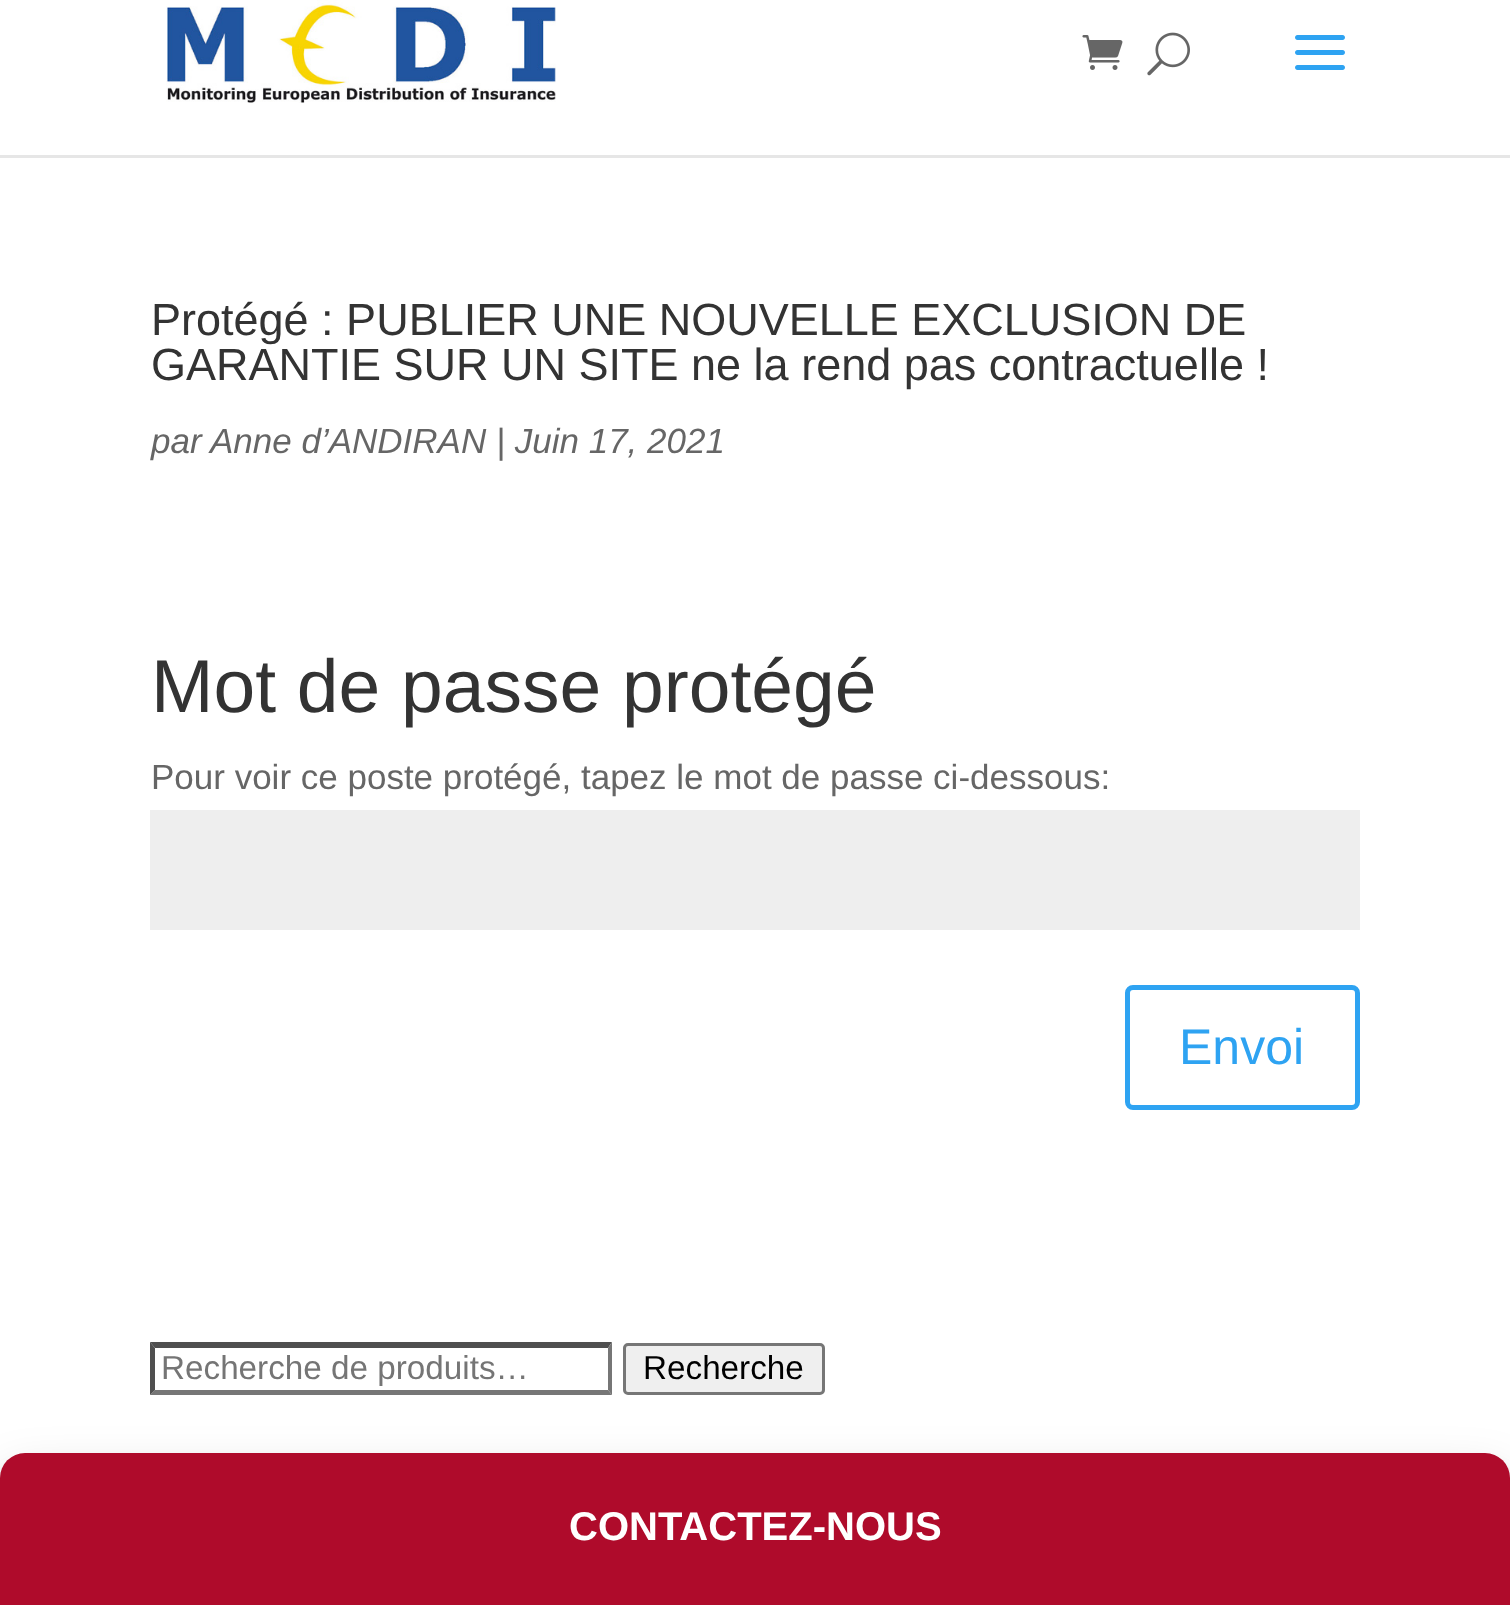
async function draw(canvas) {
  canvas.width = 1510;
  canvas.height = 1605;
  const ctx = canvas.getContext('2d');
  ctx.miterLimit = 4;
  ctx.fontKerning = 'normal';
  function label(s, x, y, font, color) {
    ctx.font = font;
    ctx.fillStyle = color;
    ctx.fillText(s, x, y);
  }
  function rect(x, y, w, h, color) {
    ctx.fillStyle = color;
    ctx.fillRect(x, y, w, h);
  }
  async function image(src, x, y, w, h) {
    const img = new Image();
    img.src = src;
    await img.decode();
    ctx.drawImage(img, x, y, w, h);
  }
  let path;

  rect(0, 0, 1510, 1605, '#fff');
  rect(0, 155, 1510, 3, '#e6e6e6');
  await image('assets/img1.png', 166, 0, 390, 103);
  await image('assets/img2.png', 1082, 35, 41, 35);
  await image('assets/img3.png', 1147, 32, 43, 44);
  await image('assets/img4.png', 1295, 35, 50, 35);
  label('Protégé : PUBLIER UNE NOUVELLE EXCLUSION DE', 151, 335, '45px Liberation Sans', '#333');
  label('GARANTIE SUR UN SITE ne la rend pas contractuelle !', 151, 380, '45px Liberation Sans', '#333');
  label('par', 151, 453, 'italic 35px Liberation Sans', '#666');
  label('Anne d’ANDIRAN | Juin 17, 2021', 210, 453, 'italic 35px Liberation Sans', '#666');
  label('Mot de passe protégé', 151, 712, '75px Liberation Sans', '#333');
  label('Pour voir ce poste protégé, tapez le mot de passe ci-dessous:', 151, 789, '35px Liberation Sans', '#666');
  rect(150, 810, 1210, 120, '#eee');
  ctx.beginPath();
  ctx.roundRect(1127.5, 987.5, 230, 120, 5.5);
  ctx.strokeStyle = '#2ea3f2';
  ctx.lineWidth = 5;
  ctx.stroke();
  label('Envoi', 1179, 1064, '50px Liberation Sans', '#2ea3f2');
  ctx.fillStyle = '#4f4f4f';
  path = new Path2D('M150 1342H612L608 1348H155Z');
  ctx.fill(path);
  ctx.fillStyle = '#767676';
  path = new Path2D('M612 1342V1395L608 1390V1348Z');
  ctx.fill(path);
  path = new Path2D('M612 1395H150L155 1390H608Z');
  ctx.fill(path);
  ctx.fillStyle = '#4f4f4f';
  path = new Path2D('M150 1395V1342L155 1348V1390Z');
  ctx.fill(path);
  label('Recherche de produits…', 161, 1379, '33.25px Liberation Sans', '#757575');
  ctx.fillStyle = '#efefef';
  ctx.beginPath();
  ctx.roundRect(624.5, 1344.5, 199, 49, 3.5);
  ctx.fill();
  ctx.strokeStyle = '#767676';
  ctx.lineWidth = 3;
  ctx.stroke();
  label('Recherche', 643, 1379, '33.25px Liberation Sans', '#000');
  ctx.fillStyle = '#0000003b';
  ctx.filter = 'blur(7.5px)';
  ctx.beginPath();
  ctx.roundRect(0, 1468, 1510, 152, 25);
  ctx.fill();
  ctx.filter = 'none';
  ctx.fillStyle = '#00000030';
  ctx.filter = 'blur(25px)';
  ctx.beginPath();
  ctx.roundRect(0, 1478, 1510, 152, 25);
  ctx.fill();
  ctx.filter = 'none';
  ctx.fillStyle = '#af0b2b';
  ctx.beginPath();
  ctx.roundRect(0, 1453, 1510, 152, [25, 25, 0, 0]);
  ctx.fill();
  label('CONTACTEZ-NOUS', 569, 1540, 'bold 40px Liberation Sans', '#fff');
}

draw(document.querySelector('canvas'));
